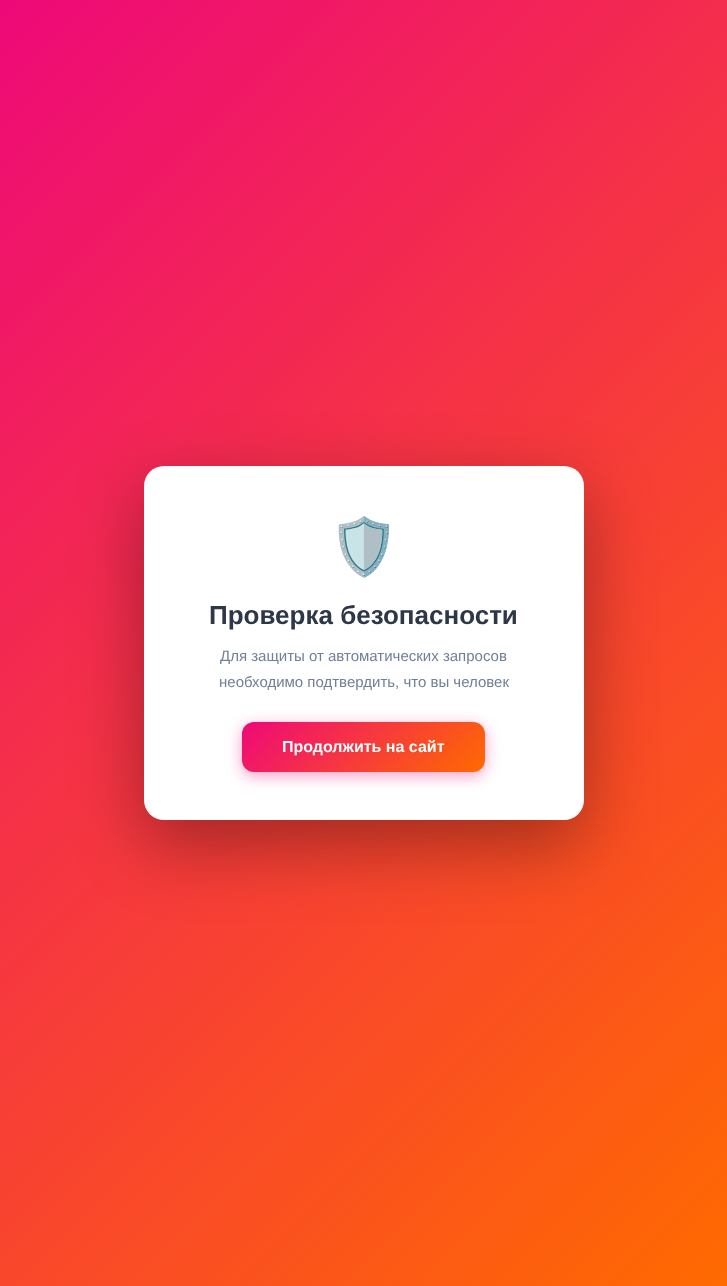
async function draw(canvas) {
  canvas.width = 727;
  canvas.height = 1286;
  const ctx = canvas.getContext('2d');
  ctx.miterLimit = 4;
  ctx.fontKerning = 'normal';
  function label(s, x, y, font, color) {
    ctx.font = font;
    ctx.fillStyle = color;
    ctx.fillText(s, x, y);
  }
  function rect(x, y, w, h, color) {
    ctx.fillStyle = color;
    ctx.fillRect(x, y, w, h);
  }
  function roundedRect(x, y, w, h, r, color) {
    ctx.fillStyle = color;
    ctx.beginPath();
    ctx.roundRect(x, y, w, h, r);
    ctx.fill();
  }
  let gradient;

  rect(0, 0, 727, 1286, '#fff');
  gradient = ctx.createLinearGradient(-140, 140, 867, 1146);
  gradient.addColorStop(0, '#ee0979');
  gradient.addColorStop(1, '#ff6a00');
  ctx.fillStyle = gradient;
  ctx.fillRect(0, 0, 727, 1286);
  ctx.fillStyle = '#00000059';
  ctx.filter = 'blur(35px)';
  ctx.beginPath();
  ctx.roundRect(144, 491, 440, 354, 20);
  ctx.fill();
  ctx.filter = 'none';
  roundedRect(144, 466, 440, 354, 20, '#fff');
  label('🛡️', 329, 566, '56px Noto Color Emoji', '#000');
  label('Проверка безопасности', 209, 624, 'bold 26px Liberation Sans', '#2d3748');
  label('Для защиты от автоматических запросов', 220, 661, '15px Liberation Sans', '#718096');
  label('необходимо подтвердить, что вы человек', 219, 687, '15px Liberation Sans', '#718096');
  ctx.fillStyle = '#ee097966';
  ctx.filter = 'blur(7.5px)';
  ctx.beginPath();
  ctx.roundRect(242, 726, 243, 50, 12);
  ctx.fill();
  ctx.filter = 'none';
  gradient = ctx.createLinearGradient(290, 674, 437, 820);
  gradient.addColorStop(0, '#ee0979');
  gradient.addColorStop(1, '#ff6a00');
  ctx.fillStyle = gradient;
  ctx.beginPath();
  ctx.roundRect(242, 722, 243, 50, 12);
  ctx.fill();
  label('Продолжить на сайт', 282, 752, 'bold 16px Liberation Sans', '#fff');
}

draw(document.querySelector('canvas'));
